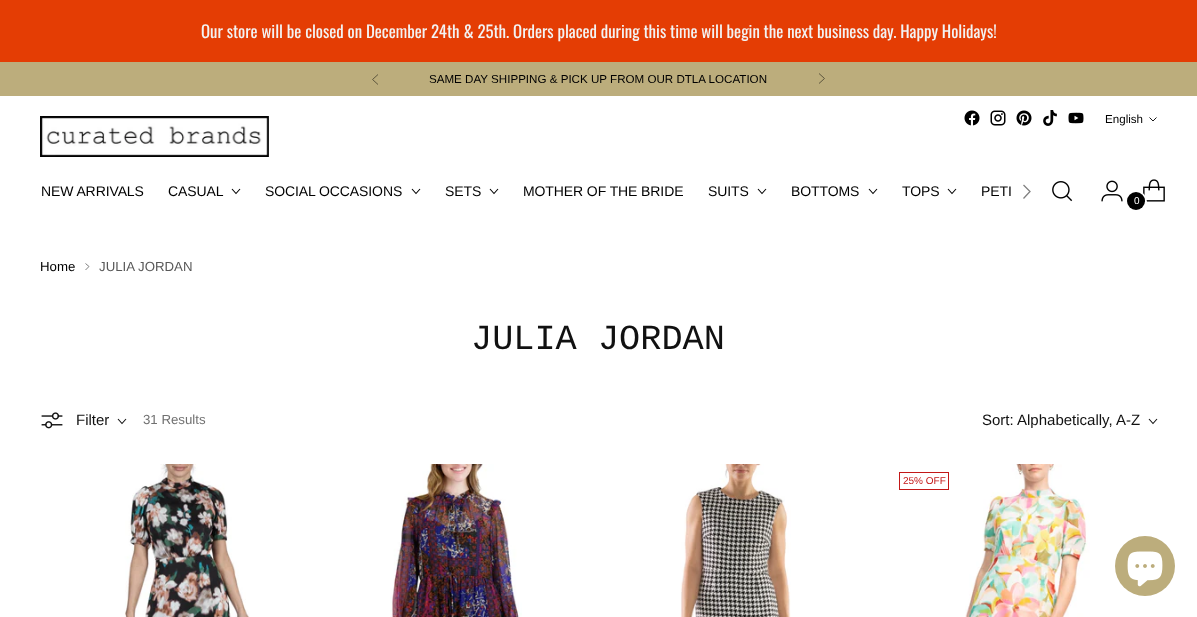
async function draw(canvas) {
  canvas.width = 1197;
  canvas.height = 617;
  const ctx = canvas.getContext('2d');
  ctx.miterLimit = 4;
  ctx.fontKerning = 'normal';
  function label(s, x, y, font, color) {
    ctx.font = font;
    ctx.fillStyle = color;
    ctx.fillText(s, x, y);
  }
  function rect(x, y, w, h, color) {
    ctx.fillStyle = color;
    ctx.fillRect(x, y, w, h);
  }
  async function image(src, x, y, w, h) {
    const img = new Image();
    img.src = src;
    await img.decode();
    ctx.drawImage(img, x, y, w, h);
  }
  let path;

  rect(0, 0, 1197, 617, '#fff');
  rect(0, 0, 1197, 62, '#e43d04');
  label('Our store will be closed on December 24th & 25th. Orders placed during this time will begin the next business day. Happy Holidays!', 201, 38, '16.8px Oswald', '#f3f3f3');
  rect(0, 62, 1197, 34, '#bcad7c');
  path = new Path2D('M378 74.5L372.5 79.5L378 84.5');
  ctx.strokeStyle = '#5e573e';
  ctx.stroke(path);
  path = new Path2D('M819 83.5L824.5 78.5L819 73.5');
  ctx.stroke(path);
  label('SAME DAY SHIPPING & PICK UP FROM OUR DTLA LOCATION', 429, 83, '11.6px Liberation Sans', '#000');
  await image('assets/img1.png', 40, 116, 229, 41);
  await image('assets/img2.png', 964, 110, 16, 16);
  await image('assets/img3.png', 990, 110, 16, 16);
  await image('assets/img4.png', 1016, 110, 16, 16);
  await image('assets/img5.png', 1043, 110, 14, 16);
  await image('assets/img6.png', 1068, 112, 16, 12);
  label('English', 1105, 123, '11.6px Liberation Sans', '#000');
  path = new Path2D('M1149.5 117.5L1153 121L1156.5 117.5');
  ctx.strokeStyle = '#000';
  ctx.lineWidth = 0.9;
  ctx.stroke(path);
  ctx.letterSpacing = '-0.1px';
  label('NEW ARRIVALS', 41, 196, '14px Liberation Sans', '#000');
  label('CASUAL', 168, 196, '14px Liberation Sans', '#000');
  path = new Path2D('M232 189L236 193.5L240 189');
  ctx.lineWidth = 1.1;
  ctx.stroke(path);
  label('SOCIAL OCCASIONS', 265, 196, '14px Liberation Sans', '#000');
  path = new Path2D('M412 189L416 193.5L420 189');
  ctx.stroke(path);
  label('SETS', 445, 196, '14px Liberation Sans', '#000');
  path = new Path2D('M490 189L494 193.5L498 189');
  ctx.stroke(path);
  label('MOTHER OF THE BRIDE', 523, 196, '14px Liberation Sans', '#000');
  label('SUITS', 708, 196, '14px Liberation Sans', '#000');
  path = new Path2D('M758 189L762 193.5L766 189');
  ctx.stroke(path);
  label('BOTTOMS', 791, 196, '14px Liberation Sans', '#000');
  path = new Path2D('M869 189L873 193.5L877 189');
  ctx.stroke(path);
  label('TOPS', 902, 196, '14px Liberation Sans', '#000');
  path = new Path2D('M948 189L952 193.5L956 189');
  ctx.stroke(path);
  label('PETI', 981, 196, '14px Liberation Sans', '#000');
  path = new Path2D('M1023.5 198.5L1030 191.5L1023.5 185');
  ctx.strokeStyle = '#808080';
  ctx.lineWidth = 1.3;
  ctx.stroke(path);
  await image('assets/img7.png', 1052, 181, 21, 21);
  await image('assets/img8.png', 1101, 180, 22, 22);
  await image('assets/img9.png', 1143, 179, 22, 23);
  ctx.beginPath();
  ctx.arc(1136.5, 201.5, 9.5, 0, 2 * Math.PI);
  ctx.strokeStyle = '#fff';
  ctx.lineWidth = 2;
  ctx.stroke();
  ctx.beginPath();
  ctx.arc(1136, 201, 9, 0, 2 * Math.PI);
  ctx.fill();
  ctx.letterSpacing = '0px';
  label('0', 1134, 204, '10px Liberation Sans', '#fff');
  label('Home', 40, 271, '13.25px Liberation Sans', '#000');
  path = new Path2D('M85.5 270L89 266.5L85.5 263.5');
  ctx.strokeStyle = '#707070';
  ctx.lineWidth = 0.9;
  ctx.stroke(path);
  label('JULIA JORDAN', 99, 271, '13.25px Liberation Sans', '#585858');
  label('JULIA JORDAN', 471, 349, '35.25px Liberation Mono', '#111');
  await image('assets/img10.png', 41, 412, 22, 17);
  label('Filter', 76, 425, '15px Liberation Sans', '#111');
  path = new Path2D('M118 419L122 423.5L126 419');
  ctx.strokeStyle = '#111';
  ctx.lineWidth = 1.1;
  ctx.stroke(path);
  label('31 Results', 143, 424, '13.25px Liberation Sans', '#707070');
  label('Sort: Alphabetically, A-Z', 982, 425, '15px Liberation Sans', '#111');
  path = new Path2D('M1149 419L1153 423.5L1157 419');
  ctx.stroke(path);
  await image('assets/img11.png', 124, 464, 126, 153);
  await image('assets/img12.png', 390, 464, 132, 153);
  await image('assets/img13.png', 680, 464, 111, 153);
  ctx.strokeStyle = '#c31818';
  ctx.lineWidth = 1;
  ctx.strokeRect(899.5, 472.5, 49, 17);
  label('25% OFF', 903, 484, '10px Liberation Sans', '#c31818');
  await image('assets/img14.png', 965, 464, 125, 153);
  ctx.fillStyle = '#bcad7c';
  ctx.beginPath();
  ctx.arc(1145, 566, 30, 0, 2 * Math.PI);
  ctx.fill();
  await image('assets/img15.png', 1127, 551, 36, 36);
}

draw(document.querySelector('canvas'));
